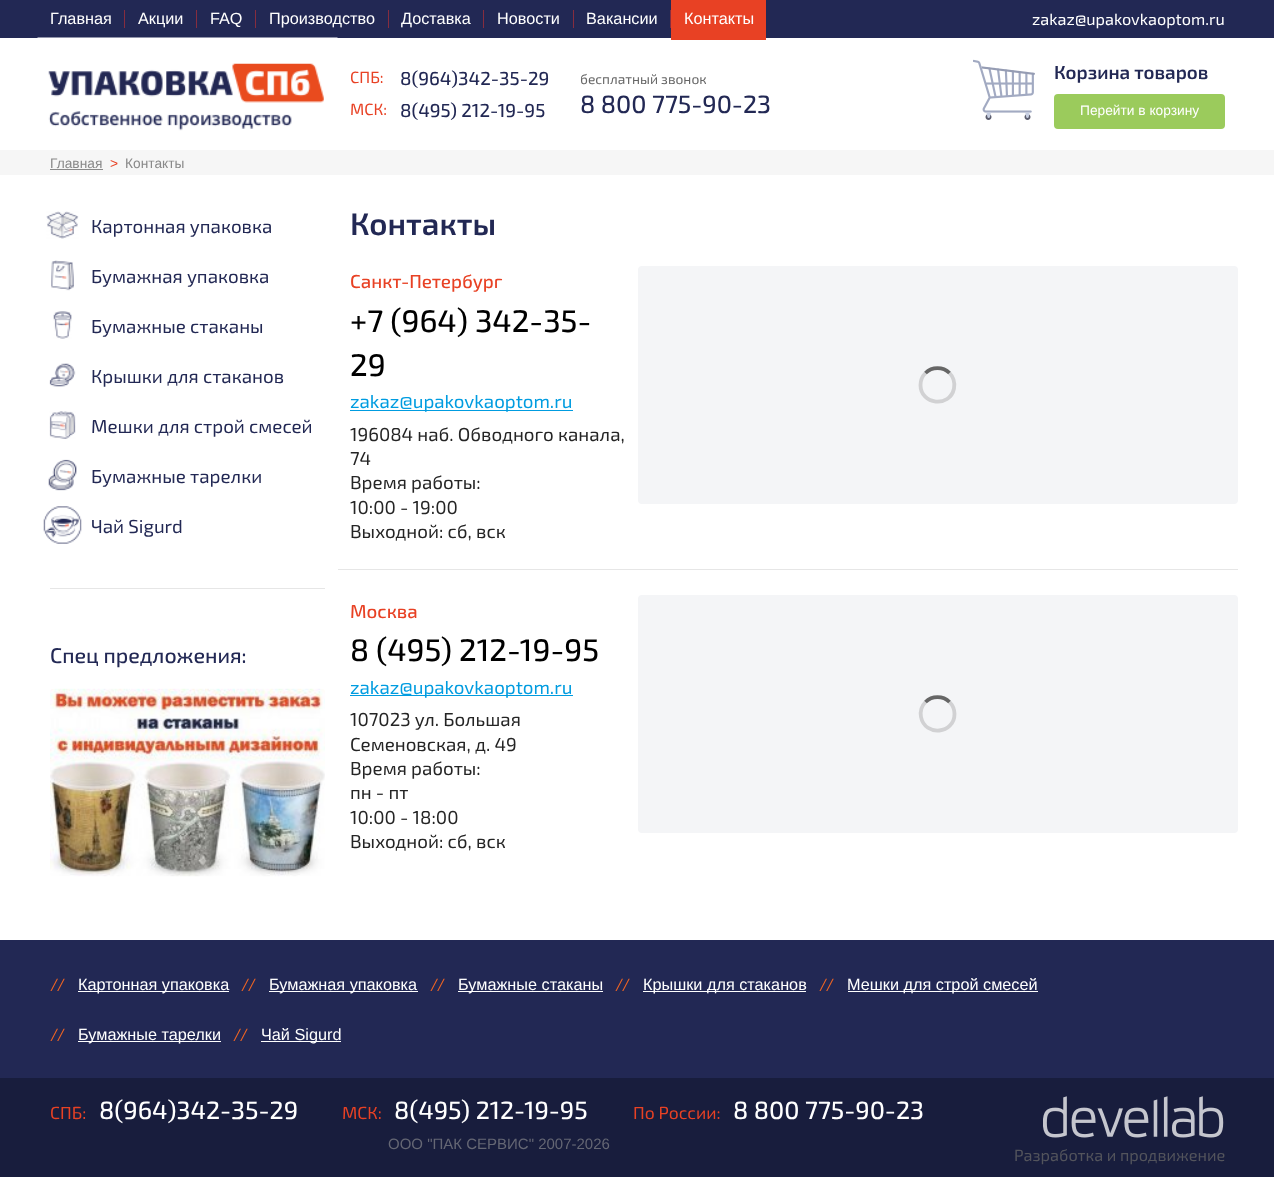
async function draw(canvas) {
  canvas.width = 1274;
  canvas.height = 1177;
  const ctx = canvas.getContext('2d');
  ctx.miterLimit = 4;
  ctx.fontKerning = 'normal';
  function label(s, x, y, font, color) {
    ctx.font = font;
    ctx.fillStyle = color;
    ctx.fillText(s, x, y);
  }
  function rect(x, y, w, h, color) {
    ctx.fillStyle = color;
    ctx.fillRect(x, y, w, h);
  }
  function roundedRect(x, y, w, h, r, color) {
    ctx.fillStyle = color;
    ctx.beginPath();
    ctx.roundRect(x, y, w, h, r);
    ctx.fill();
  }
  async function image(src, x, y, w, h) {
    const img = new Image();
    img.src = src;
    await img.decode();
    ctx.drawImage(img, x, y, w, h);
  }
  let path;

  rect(0, 0, 1274, 1177, '#fff');
  rect(0, 0, 1274, 38, '#222854');
  label('Главная', 50, 24, '16.25px Liberation Sans', '#fff');
  rect(124, 10, 1, 18, '#852d3f');
  label('Акции', 138, 24, '16.25px Liberation Sans', '#fff');
  rect(196, 10, 1, 18, '#852d3f');
  label('FAQ', 210, 24, '16.25px Liberation Sans', '#fff');
  rect(255, 10, 1, 18, '#852d3f');
  label('Производство', 269, 24, '16.25px Liberation Sans', '#fff');
  rect(388, 10, 1, 18, '#852d3f');
  label('Доставка', 401, 24, '16.25px Liberation Sans', '#fff');
  rect(483, 10, 1, 18, '#852d3f');
  label('Новости', 497, 24, '16.25px Liberation Sans', '#fff');
  rect(573, 10, 1, 18, '#852d3f');
  label('Вакансии', 586, 24, '16.25px Liberation Sans', '#fff');
  rect(670, 10, 1, 18, '#852d3f');
  rect(671, 0, 95, 40, '#e84124');
  label('Контакты', 684, 24, '16.25px Liberation Sans', '#fff');
  label('zakaz@upakovkaoptom.ru', 1032, 25, '16.25px "Exo 2"', '#fff');
  await image('assets/img1.png', 37, 37, 301, 94);
  label('СПБ:', 350, 83, '16.25px "Exo 2"', '#e84124');
  label('8(964)342-35-29', 400, 85, '500 18.75px "Exo 2"', '#222854');
  label('МСК:', 350, 115, '16.25px "Exo 2"', '#e84124');
  label('8(495) 212-19-95', 400, 117, '500 18.75px "Exo 2"', '#222854');
  label('бесплатный звонок', 580, 84, '13.75px "Exo 2"', '#666');
  label('8 800 775-90-23', 580, 113, '500 25px "Exo 2"', '#222854');
  await image('assets/img2.png', 973, 59, 62, 61);
  label('Корзина товаров', 1054, 79, '600 18.75px "Exo 2"', '#222854');
  roundedRect(1054, 94, 171, 35, 4, '#9bcb5c');
  label('Перейти в корзину', 1080, 115, '13.75px Liberation Sans', '#fff');
  rect(0, 150, 1274, 25, '#f6f6f6');
  label('Главная', 50, 168, '13.75px Liberation Sans', '#898989');
  rect(50, 169, 53, 1, '#898989');
  label('>', 110, 168, '13.75px Liberation Sans', '#e84124');
  label('Контакты', 125, 168, '13.75px Liberation Sans', '#898989');
  await image('assets/img3.png', 46, 211, 33, 28);
  label('Картонная упаковка', 91, 233, '18.75px "Exo 2"', '#222854');
  await image('assets/img4.png', 51, 260, 23, 31);
  label('Бумажная упаковка', 91, 283, '18.75px "Exo 2"', '#222854');
  await image('assets/img5.png', 53, 311, 19, 28);
  label('Бумажные стаканы', 91, 333, '18.75px "Exo 2"', '#222854');
  await image('assets/img6.png', 49, 363, 27, 24);
  label('Крышки для стаканов', 91, 383, '18.75px "Exo 2"', '#222854');
  await image('assets/img7.png', 49, 411, 27, 28);
  label('Мешки для строй смесей', 91, 433, '18.75px "Exo 2"', '#222854');
  await image('assets/img8.png', 48, 459, 29, 32);
  label('Бумажные тарелки', 91, 483, '18.75px "Exo 2"', '#222854');
  await image('assets/img9.png', 43, 506, 39, 38);
  label('Чай Sigurd', 91, 533, '18.75px "Exo 2"', '#222854');
  rect(50, 588, 275, 1, '#e6e6e6');
  label('Спец предложения:', 50, 663, '500 21.25px "Exo 2"', '#222854');
  await image('assets/img10.png', 50, 688, 275, 189);
  label('Контакты', 350, 235, '600 31.25px "Exo 2"', '#222854');
  label('Санкт-Петербург', 350, 288, '500 18.75px "Exo 2"', '#e84124');
  label('+7 (964) 342-35-', 350, 332, '500 31.25px "Exo 2"', '#000');
  label('29', 350, 376, '500 31.25px "Exo 2"', '#000');
  rect(350, 410, 223, 1, '#009ce0');
  label('zakaz@upakovkaoptom.ru', 350, 408, '18.75px "Exo 2"', '#009ce0');
  label('196084 наб. Обводного канала,', 350, 441, '18.75px "Exo 2"', '#252525');
  label('74', 350, 465, '18.75px "Exo 2"', '#252525');
  label('Время работы:', 350, 489, '18.75px "Exo 2"', '#252525');
  label('10:00 - 19:00', 350, 514, '18.75px "Exo 2"', '#252525');
  label('Выходной: сб, вск', 350, 538, '18.75px "Exo 2"', '#252525');
  roundedRect(638, 266, 600, 238, 4, '#f4f5f7');
  path = new Path2D('M925.5 373C932 366.5 943 366.5 949.5 373');
  ctx.strokeStyle = '#666';
  ctx.lineWidth = 3.8;
  ctx.stroke(path);
  path = new Path2D('M949.5 373C953.5 377 955 383 954 388.5C950 408 920.5 405 920.5 385C920.5 380.5 922.5 376 925.5 373');
  ctx.strokeStyle = '#66666640';
  ctx.stroke(path);
  rect(338, 569, 900, 1, '#e6e6e6');
  label('Москва', 350, 618, '500 18.75px "Exo 2"', '#e84124');
  label('8 (495) 212-19-95', 350, 661, '500 31.25px "Exo 2"', '#000');
  rect(350, 695, 223, 1, '#009ce0');
  label('zakaz@upakovkaoptom.ru', 350, 694, '18.75px "Exo 2"', '#009ce0');
  label('107023 ул. Большая', 350, 726, '18.75px "Exo 2"', '#252525');
  label('Семеновская, д. 49', 350, 751, '18.75px "Exo 2"', '#252525');
  label('Время работы:', 350, 775, '18.75px "Exo 2"', '#252525');
  label('пн - пт', 350, 799, '18.75px "Exo 2"', '#252525');
  label('10:00 - 18:00', 350, 824, '18.75px "Exo 2"', '#252525');
  label('Выходной: сб, вск', 350, 848, '18.75px "Exo 2"', '#252525');
  roundedRect(638, 595, 600, 238, 4, '#f4f5f7');
  path = new Path2D('M925.5 702C932 695.5 943 695.5 949.5 702');
  ctx.strokeStyle = '#666';
  ctx.stroke(path);
  path = new Path2D('M949.5 702C952.5 705 954.5 709.5 954.5 714C954.5 734 925 737 921 717C920 711.5 921.5 706 925.5 702');
  ctx.strokeStyle = '#66666640';
  ctx.stroke(path);
  rect(0, 940, 1274, 138, '#222854');
  label('//', 50, 990, '16.25px "Exo 2"', '#f26522');
  rect(78, 991, 151, 1, '#fff');
  label('Картонная упаковка', 78, 990, '16.25px Liberation Sans', '#fff');
  label('//', 241, 990, '16.25px "Exo 2"', '#f26522');
  rect(269, 991, 149, 1, '#fff');
  label('Бумажная упаковка', 269, 990, '16.25px Liberation Sans', '#fff');
  label('//', 430, 990, '16.25px "Exo 2"', '#f26522');
  rect(458, 991, 145, 1, '#fff');
  label('Бумажные стаканы', 458, 990, '16.25px Liberation Sans', '#fff');
  label('//', 615, 990, '16.25px "Exo 2"', '#f26522');
  rect(643, 991, 163, 1, '#fff');
  label('Крышки для стаканов', 643, 990, '16.25px Liberation Sans', '#fff');
  label('//', 819, 990, '16.25px "Exo 2"', '#f26522');
  rect(848, 991, 190, 1, '#fff');
  label('Мешки для строй смесей', 847, 990, '16.25px Liberation Sans', '#fff');
  label('//', 50, 1040, '16.25px "Exo 2"', '#f26522');
  rect(78, 1041, 143, 1, '#fff');
  label('Бумажные тарелки', 78, 1040, '16.25px Liberation Sans', '#fff');
  label('//', 233, 1040, '16.25px "Exo 2"', '#f26522');
  rect(261, 1041, 80, 1, '#fff');
  label('Чай Sigurd', 261, 1040, '16.25px Liberation Sans', '#fff');
  rect(0, 1078, 1274, 99, '#181d3d');
  label('СПБ:', 50, 1119, '17.5px "Exo 2"', '#e84124');
  label('8(964)342-35-29', 99, 1119, '500 25px "Exo 2"', '#fff');
  label('МСК:', 342, 1119, '17.5px "Exo 2"', '#e84124');
  label('8(495) 212-19-95', 394, 1119, '500 25px "Exo 2"', '#fff');
  label('По России:', 633, 1119, '17.5px "Exo 2"', '#e84124');
  label('8 800 775-90-23', 733, 1119, '500 25px "Exo 2"', '#fff');
  label('ООО "ПАК СЕРВИС" 2007-2026', 388, 1149, '15px Liberation Sans', '#656774');
  await image('assets/img11.png', 1043, 1096, 181, 42);
  label('Разработка и продвижение', 1014, 1161, '16.25px "Exo 2"', '#53545c');
}

draw(document.querySelector('canvas'));
